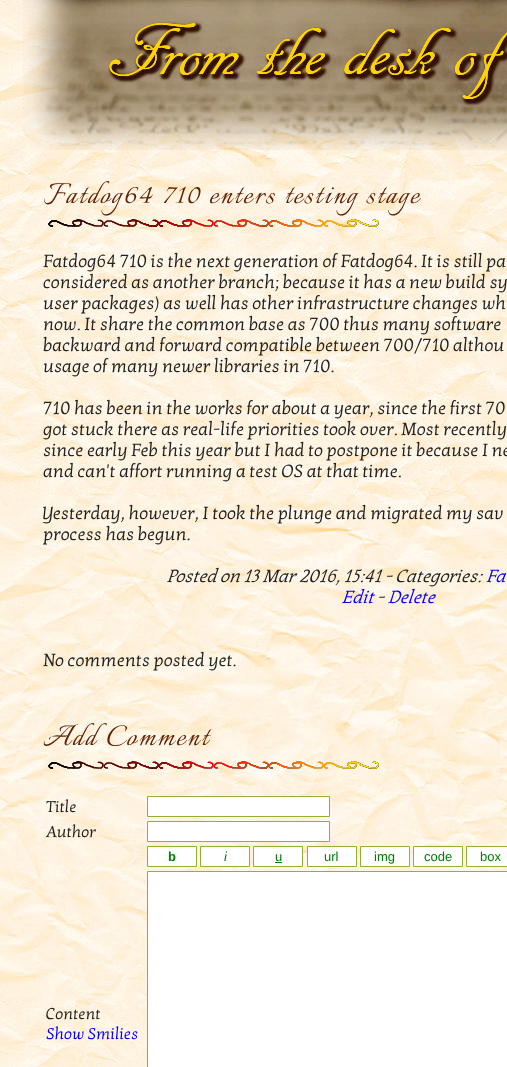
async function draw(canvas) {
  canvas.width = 507;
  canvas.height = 1067;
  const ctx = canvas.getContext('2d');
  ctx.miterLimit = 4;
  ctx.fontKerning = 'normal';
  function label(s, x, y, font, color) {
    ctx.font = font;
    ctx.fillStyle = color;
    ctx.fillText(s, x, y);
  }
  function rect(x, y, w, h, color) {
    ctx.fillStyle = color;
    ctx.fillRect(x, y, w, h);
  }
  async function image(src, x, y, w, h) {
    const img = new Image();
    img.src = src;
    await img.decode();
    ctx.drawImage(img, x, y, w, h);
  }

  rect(0, 0, 507, 1067, '#fff');
  await image('assets/img1.png', 0, 0, 507, 1067);
  await image('assets/img2.png', 23, 0, 484, 150);
  ctx.letterSpacing = '2px';
  label('Fatdog64 710 enters testing stage', 43, 203, '36px Italianno', '#602000');
  await image('assets/img3.png', 48, 219, 331, 8);
  ctx.letterSpacing = '0px';
  label('Fatdog64 710 is the next generation of Fatdog64. It is still pa', 43, 267, '18px Kotta One', '#222');
  label('considered as another branch; because it has a new build sy', 43, 288, '18px Kotta One', '#222');
  label('user packages) as well has other infrastructure changes wh', 43, 309, '18px Kotta One', '#222');
  label('now. It share the common base as 700 thus many software', 43, 330, '18px Kotta One', '#222');
  label('backward and forward compatible between 700/710 althou', 43, 351, '18px Kotta One', '#222');
  label('usage of many newer libraries in 710.', 43, 372, '18px Kotta One', '#222');
  label('710 has been in the works for about a year, since the first 70', 43, 414, '18px Kotta One', '#222');
  label('got stuck there as real-life priorities took over. Most recently', 43, 435, '18px Kotta One', '#222');
  label('since early Feb this year but I had to postpone it because I ne', 43, 456, '18px Kotta One', '#222');
  label('and can\'t affort running a test OS at that time.', 43, 477, '18px Kotta One', '#222');
  label('Yesterday, however, I took the plunge and migrated my sav', 43, 519, '18px Kotta One', '#222');
  label('process has begun.', 43, 540, '18px Kotta One', '#222');
  label('Posted on 13 Mar 2016, 15:41 - Categories:', 167, 582, 'italic 18px Kotta One', '#222');
  label('Fa', 486, 582, 'italic 18px Kotta One', '#00f');
  label('Edit', 342, 603, 'italic 18px Kotta One', '#00f');
  label('-', 377, 603, 'italic 18px Kotta One', '#222');
  label('Delete', 388, 603, 'italic 18px Kotta One', '#00f');
  label('No comments posted yet.', 43, 666, '18px Kotta One', '#222');
  ctx.letterSpacing = '2px';
  label('Add Comment', 43, 745, '36px Italianno', '#602000');
  await image('assets/img4.png', 48, 761, 331, 8);
  ctx.letterSpacing = '0px';
  label('Title', 46, 812, '16px Kotta One', '#222');
  ctx.fillStyle = '#fff';
  ctx.beginPath();
  ctx.rect(147.5, 796.5, 182, 20);
  ctx.fill();
  ctx.strokeStyle = '#8fb236';
  ctx.stroke();
  label('Author', 46, 837, '16px Kotta One', '#222');
  ctx.fillStyle = '#fff';
  ctx.beginPath();
  ctx.rect(147.5, 821.5, 182, 20);
  ctx.fill();
  ctx.stroke();
  ctx.beginPath();
  ctx.rect(147.5, 846.5, 49, 20);
  ctx.fill();
  ctx.stroke();
  label('b', 168, 861, 'bold 13px Liberation Sans', '#008000');
  ctx.fillStyle = '#fff';
  ctx.beginPath();
  ctx.rect(200.5, 846.5, 49, 20);
  ctx.fill();
  ctx.stroke();
  label('i', 224, 861, 'italic 13px Liberation Sans', '#008000');
  ctx.fillStyle = '#fff';
  ctx.beginPath();
  ctx.rect(253.5, 846.5, 49, 20);
  ctx.fill();
  ctx.stroke();
  label('u', 275, 861, '13px Liberation Sans', '#008000');
  rect(275, 862, 7, 1, '#008000');
  ctx.fillStyle = '#fff';
  ctx.beginPath();
  ctx.rect(307.5, 846.5, 49, 20);
  ctx.fill();
  ctx.stroke();
  label('url', 324, 861, '13px Liberation Sans', '#008000');
  ctx.fillStyle = '#fff';
  ctx.beginPath();
  ctx.rect(360.5, 846.5, 49, 20);
  ctx.fill();
  ctx.stroke();
  label('img', 374, 861, '13px Liberation Sans', '#008000');
  ctx.fillStyle = '#fff';
  ctx.beginPath();
  ctx.rect(413.5, 846.5, 49, 20);
  ctx.fill();
  ctx.stroke();
  label('code', 424, 861, '13px Liberation Sans', '#008000');
  ctx.fillStyle = '#fff';
  ctx.beginPath();
  ctx.rect(466.5, 846.5, 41, 20);
  ctx.fill();
  ctx.stroke();
  label('box', 480, 861, '13px Liberation Sans', '#008000');
  label('Content', 46, 1019, '16px Kotta One', '#222');
  label('Show Smilies', 46, 1039, '16px Kotta One', '#00f');
  ctx.fillStyle = '#fff';
  ctx.beginPath();
  ctx.rect(147.5, 871.5, 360, 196);
  ctx.fill();
  ctx.stroke();
}

draw(document.querySelector('canvas'));
